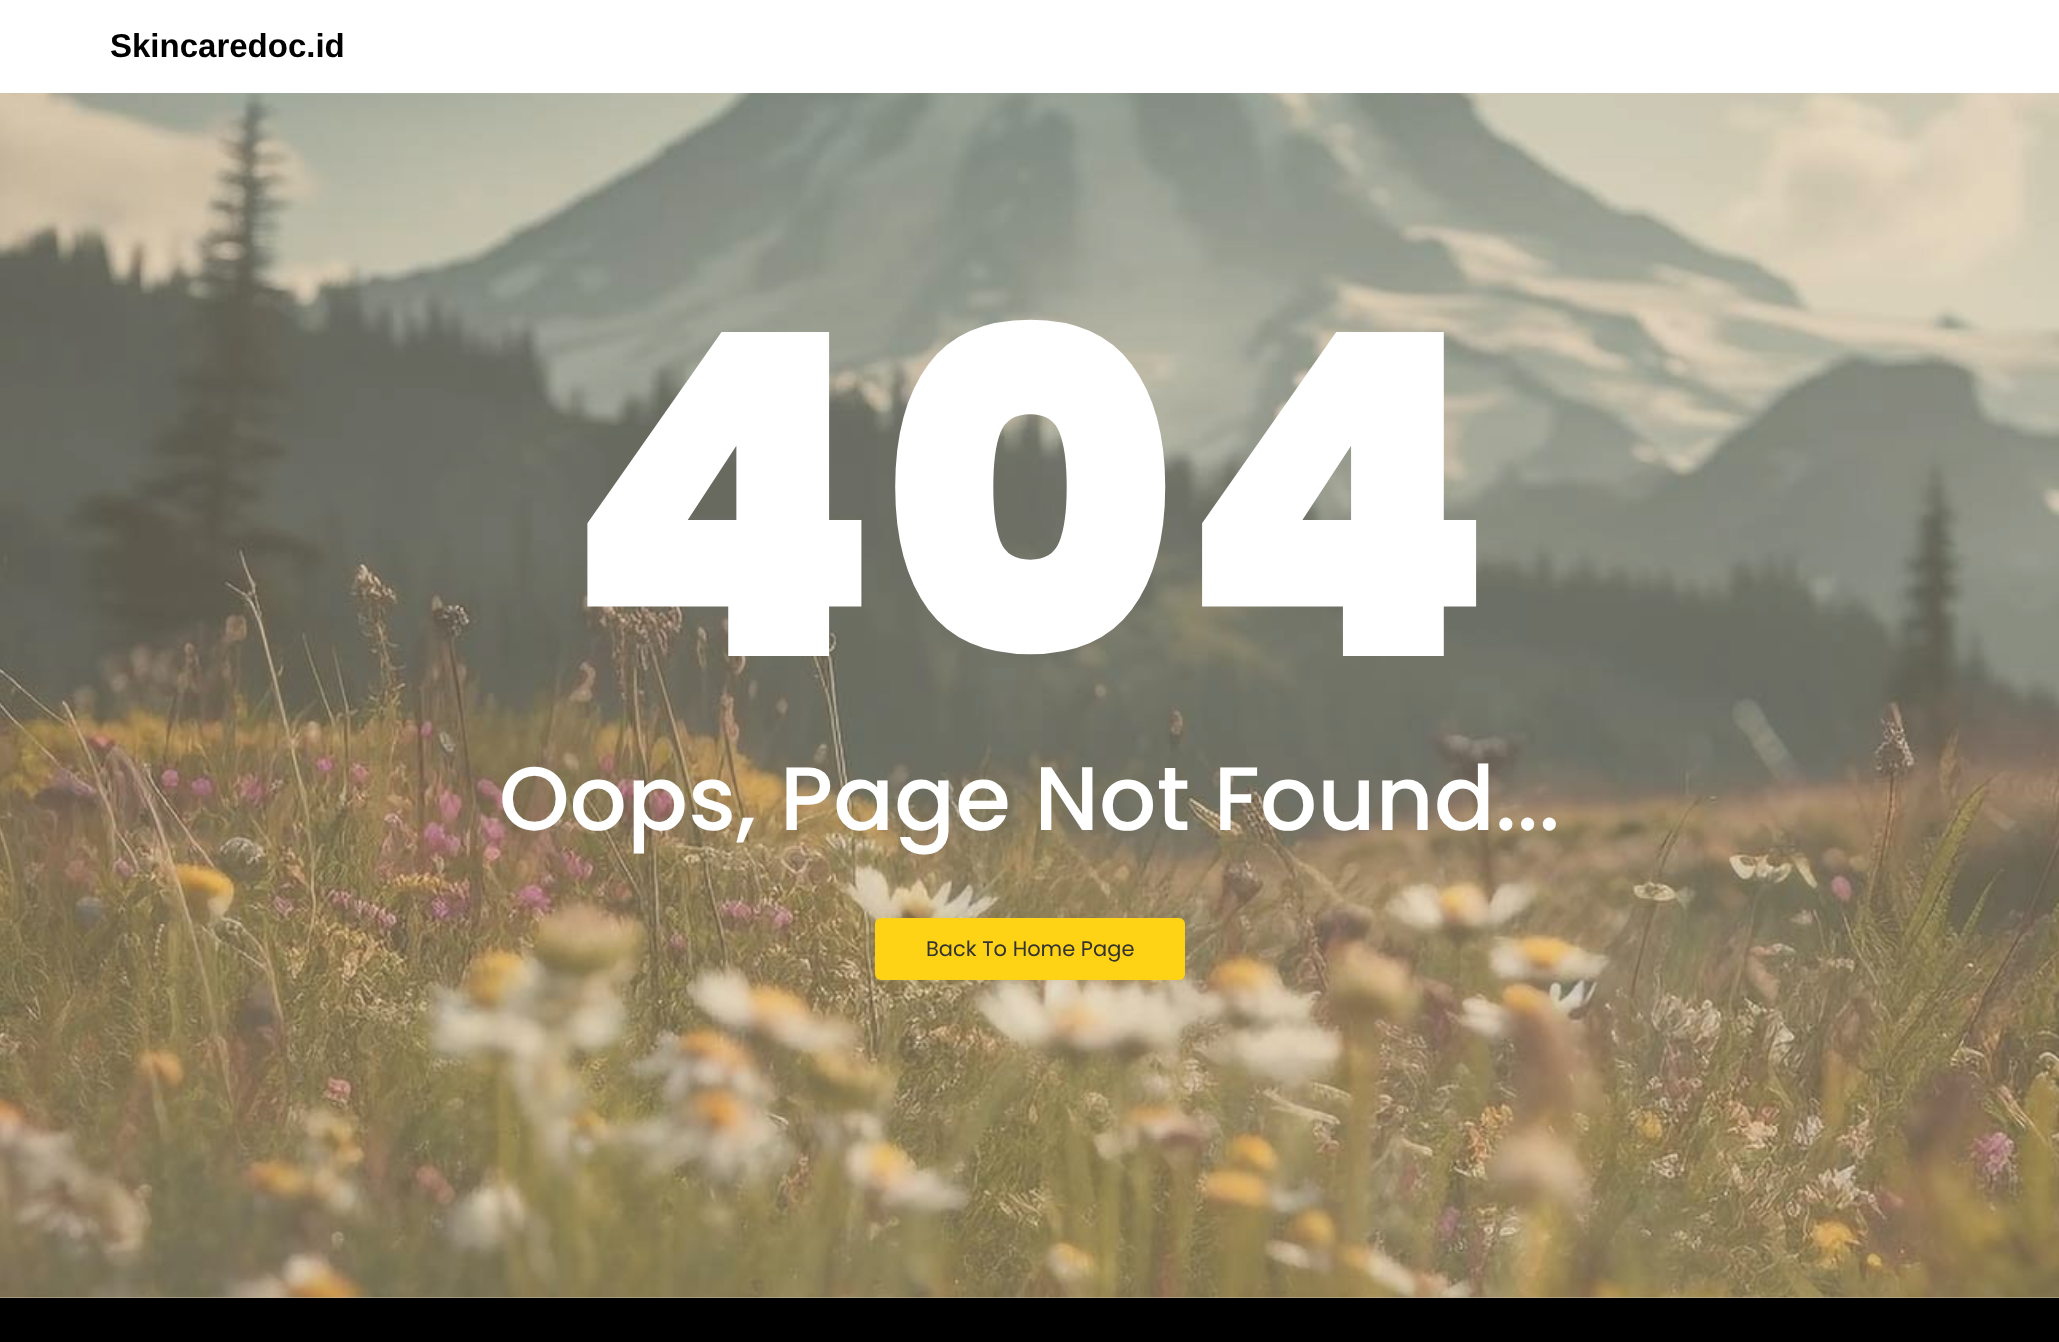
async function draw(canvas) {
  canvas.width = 2059;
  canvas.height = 1342;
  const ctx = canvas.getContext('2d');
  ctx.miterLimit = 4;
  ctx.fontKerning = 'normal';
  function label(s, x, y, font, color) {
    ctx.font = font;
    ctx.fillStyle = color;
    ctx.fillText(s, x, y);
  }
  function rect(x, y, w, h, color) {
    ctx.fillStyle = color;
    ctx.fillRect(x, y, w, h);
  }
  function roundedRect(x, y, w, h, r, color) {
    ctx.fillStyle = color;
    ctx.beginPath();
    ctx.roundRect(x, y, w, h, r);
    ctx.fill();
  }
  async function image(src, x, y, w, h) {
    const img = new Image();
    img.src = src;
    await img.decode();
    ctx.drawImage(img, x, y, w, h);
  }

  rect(0, 0, 2059, 1342, '#cdc1a3');
  rect(0, 0, 2059, 93, '#fff');
  label('Skincaredoc.id', 110, 57, 'bold 33px Liberation Sans', '#000');
  await image('assets/img1.png', 0, 93, 2059, 1205);
  label('404', 564, 656, '900 450px Poppins', '#fff');
  label('Oops, Page Not Found...', 499, 830, '500 90px Poppins', '#fff');
  roundedRect(875, 918, 310, 62, 6, '#ffd315');
  label('Back To Home Page', 926, 956, '21px Poppins', '#333');
  rect(0, 1298, 2059, 44, '#000');
}

draw(document.querySelector('canvas'));
